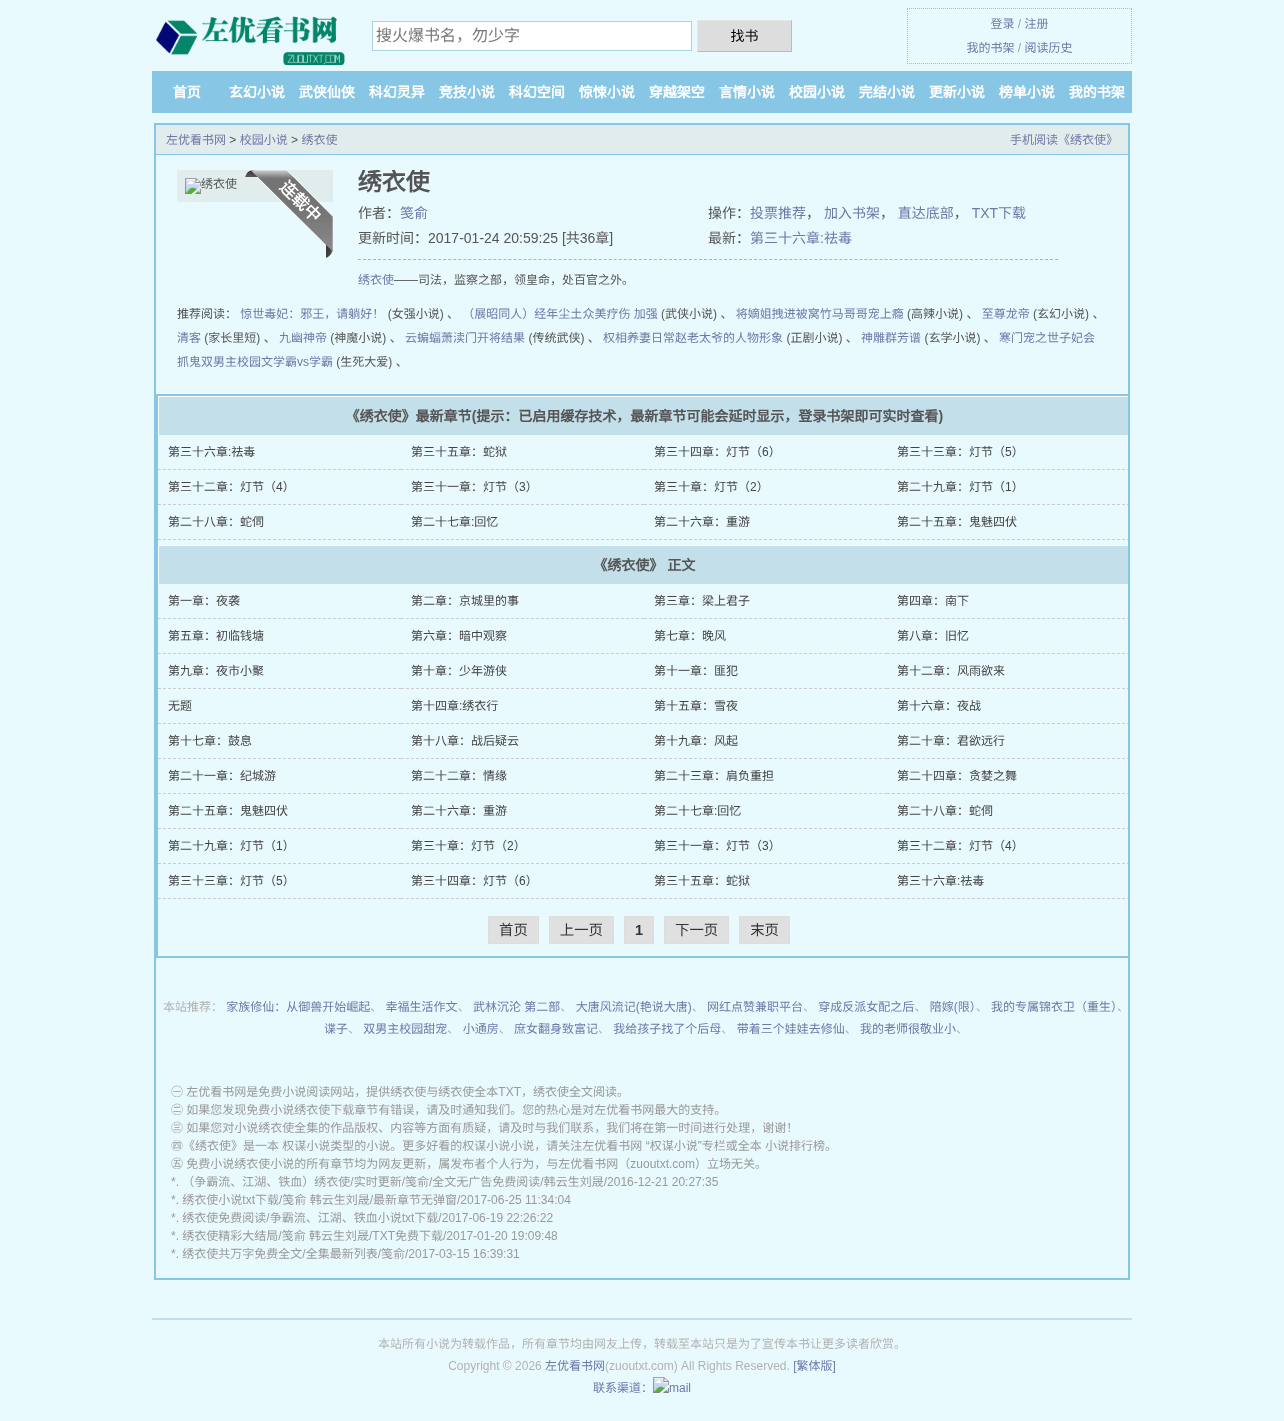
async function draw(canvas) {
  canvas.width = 1284;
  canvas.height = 1421;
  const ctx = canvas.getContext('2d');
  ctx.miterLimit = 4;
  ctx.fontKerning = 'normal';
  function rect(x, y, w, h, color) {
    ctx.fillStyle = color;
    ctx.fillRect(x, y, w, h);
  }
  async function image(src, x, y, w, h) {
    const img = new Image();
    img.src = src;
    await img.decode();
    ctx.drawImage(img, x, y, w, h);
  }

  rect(0, 0, 1284, 1421, '#fff');
  await image('assets/img1.png', 0, 0, 1284, 1421);
}

draw(document.querySelector('canvas'));
